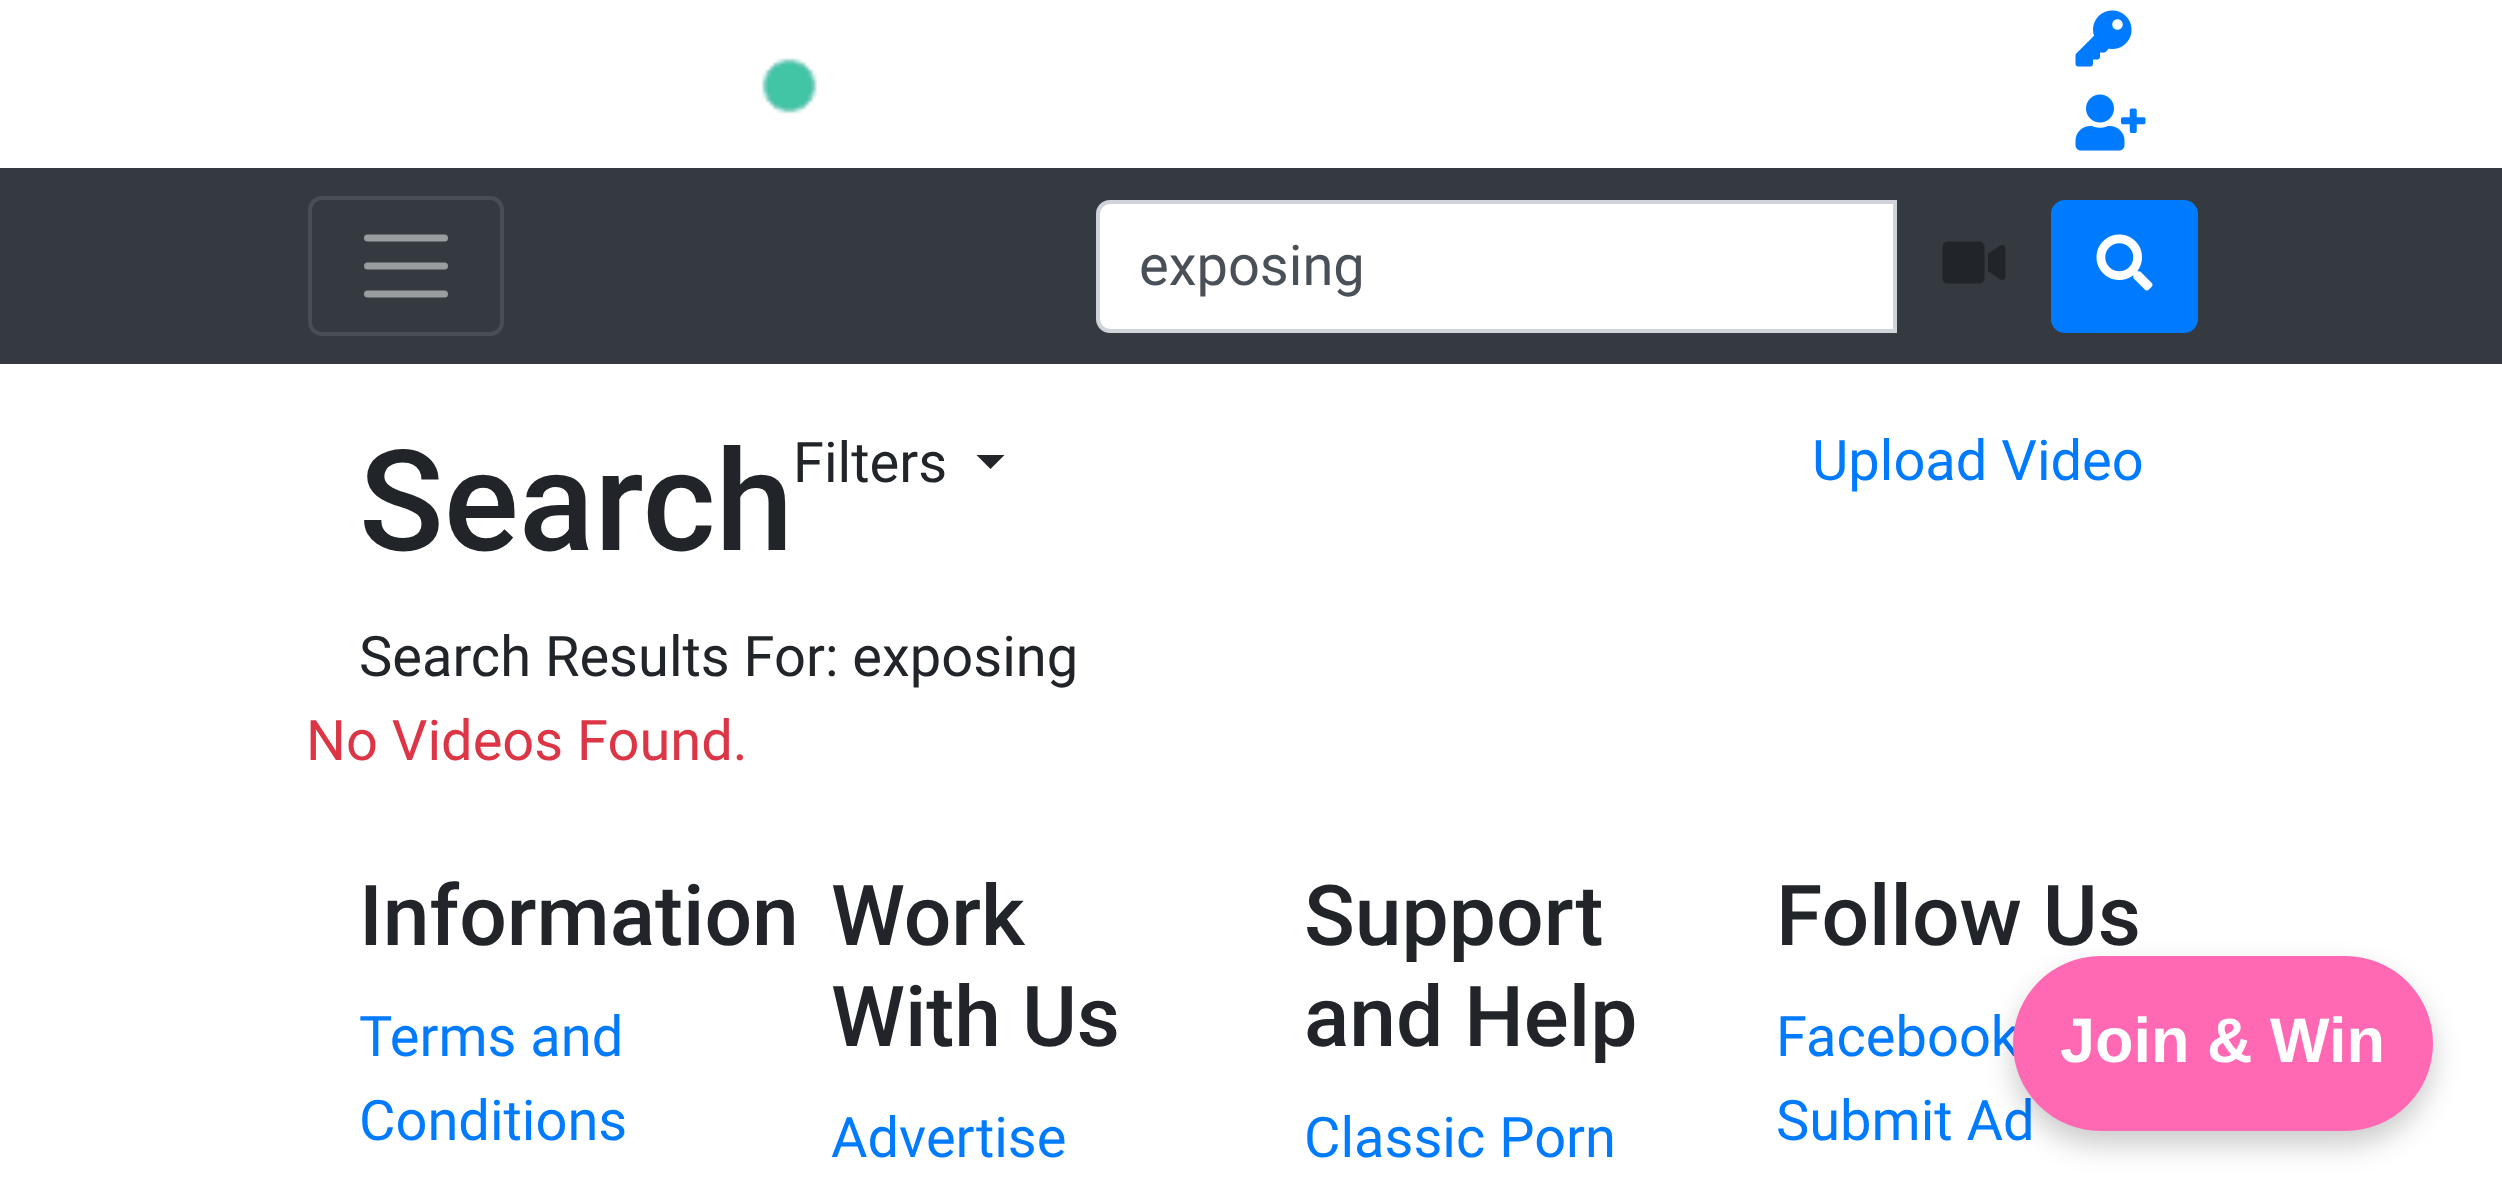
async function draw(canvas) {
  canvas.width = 2502;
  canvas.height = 1200;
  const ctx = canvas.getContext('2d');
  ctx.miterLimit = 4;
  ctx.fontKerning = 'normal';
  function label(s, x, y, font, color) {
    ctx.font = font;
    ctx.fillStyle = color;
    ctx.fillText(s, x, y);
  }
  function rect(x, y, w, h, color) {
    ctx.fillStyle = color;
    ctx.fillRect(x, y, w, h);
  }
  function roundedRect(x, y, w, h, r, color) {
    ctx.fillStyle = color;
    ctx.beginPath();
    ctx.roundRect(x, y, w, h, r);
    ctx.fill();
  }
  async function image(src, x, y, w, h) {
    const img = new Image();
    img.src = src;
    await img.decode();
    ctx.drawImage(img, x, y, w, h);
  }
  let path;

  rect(0, 0, 2502, 1200, '#fff');
  await image('assets/img1.png', 761, 58, 56, 56);
  await image('assets/img2.png', 2075, 10, 57, 57);
  await image('assets/img3.png', 2075, 94, 71, 57);
  rect(0, 168, 2502, 196, '#343a40');
  ctx.beginPath();
  ctx.roundRect(310, 198, 192, 136, 12);
  ctx.strokeStyle = '#484e53';
  ctx.lineWidth = 4;
  ctx.stroke();
  path = new Path2D('M367.5 238H444.5M367.5 266H444.5M367.5 294H444.5');
  ctx.strokeStyle = '#9a9da0';
  ctx.lineWidth = 7;
  ctx.lineCap = 'round';
  ctx.stroke(path);
  ctx.fillStyle = '#fff';
  ctx.beginPath();
  ctx.roundRect(1098, 202, 797, 129, [12, 0, 0, 12]);
  ctx.fill();
  ctx.strokeStyle = '#ced4da';
  ctx.lineWidth = 4;
  ctx.stroke();
  label('exposing', 1139, 285, '56px Roboto', '#495057');
  await image('assets/img4.png', 1942, 241, 64, 43);
  ctx.fillStyle = '#007bff';
  ctx.beginPath();
  ctx.roundRect(2053, 202, 143, 129, 12);
  ctx.fill();
  ctx.strokeStyle = '#007bff';
  ctx.stroke();
  await image('assets/img5.png', 2096, 234, 57, 57);
  label('Search', 359, 550, '500 140px Roboto', '#212529');
  label('Filters', 793, 482, '56px Roboto', '#212529');
  path = new Path2D('M976.5 455H1004.5L990.5 469Z');
  ctx.fill(path);
  label('Upload Video', 1812, 480, '56px Roboto', '#007bff');
  label('Search Results For: exposing', 359, 676, '56px Roboto', '#212529');
  label('No Videos Found.', 306, 760, '56px Roboto', '#dc3545');
  label('Information', 359, 945, '500 84px Roboto', '#212529');
  label('Terms and', 359, 1056, '56px Roboto', '#007bff');
  label('Conditions', 359, 1140, '56px Roboto', '#007bff');
  label('Work', 831, 945, '500 84px Roboto', '#212529');
  label('With Us', 831, 1046, '500 84px Roboto', '#212529');
  label('Advertise', 831, 1157, '56px Roboto', '#007bff');
  label('Support', 1304, 945, '500 84px Roboto', '#212529');
  label('and Help', 1304, 1046, '500 84px Roboto', '#212529');
  label('Classic Porn', 1304, 1157, '56px Roboto', '#007bff');
  label('Follow Us', 1776, 945, '500 84px Roboto', '#212529');
  label('Facebook', 1776, 1056, '56px Roboto', '#007bff');
  label('Submit Ad', 1776, 1140, '56px Roboto', '#007bff');
  ctx.fillStyle = '#00000033';
  ctx.filter = 'blur(14px)';
  ctx.beginPath();
  ctx.roundRect(2013, 970, 420, 175, 87.5);
  ctx.fill();
  ctx.filter = 'none';
  roundedRect(2013, 956, 420, 175, 87.5, '#ff69b4');
  label('Join & Win', 2060, 1062, 'bold 63px Liberation Sans', '#fff');
}

draw(document.querySelector('canvas'));
